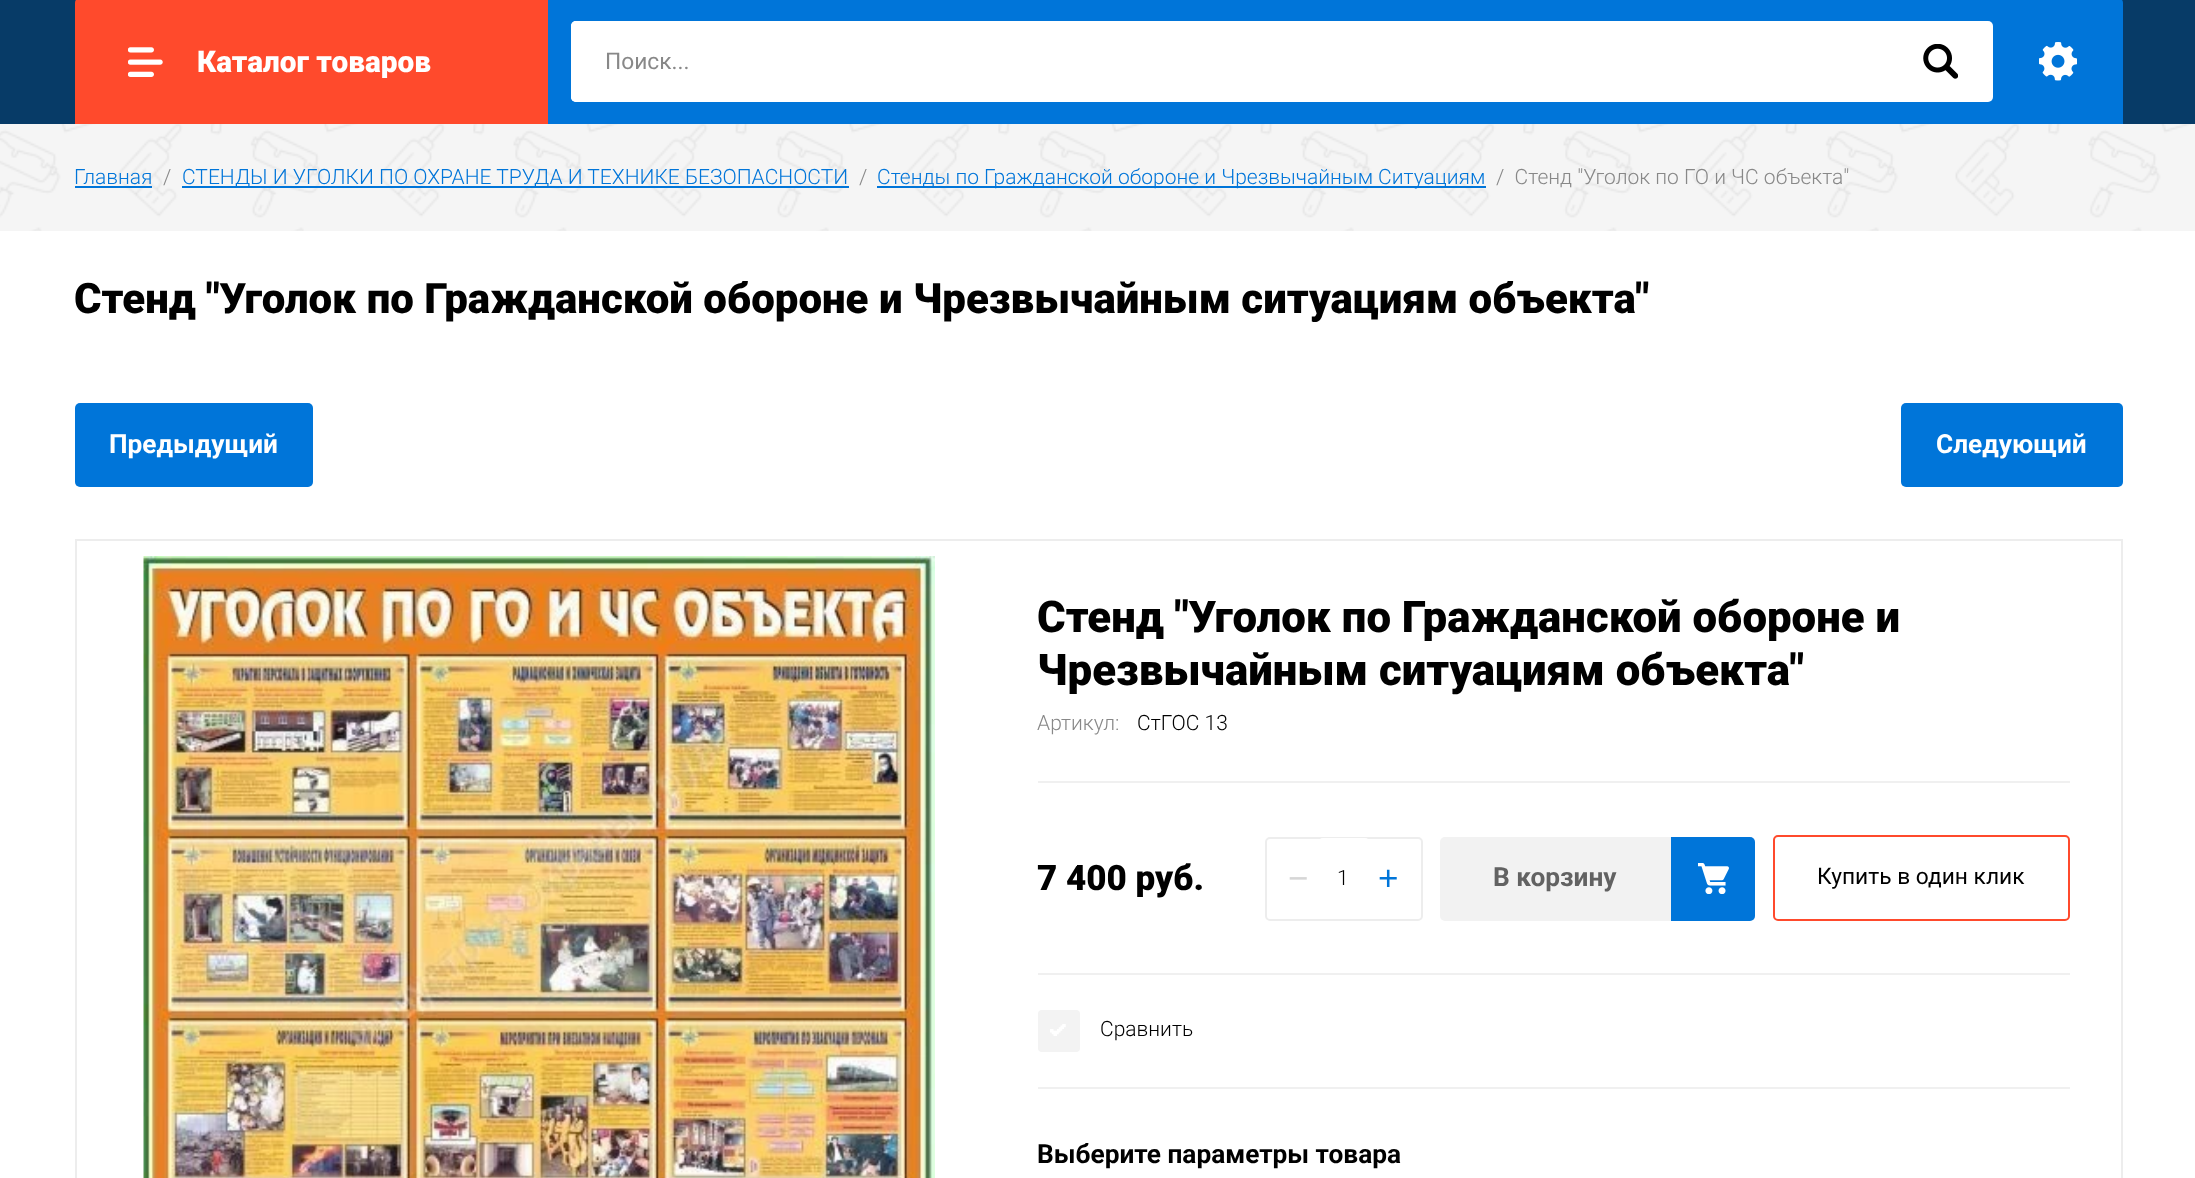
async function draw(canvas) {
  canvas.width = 2195;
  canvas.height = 1178;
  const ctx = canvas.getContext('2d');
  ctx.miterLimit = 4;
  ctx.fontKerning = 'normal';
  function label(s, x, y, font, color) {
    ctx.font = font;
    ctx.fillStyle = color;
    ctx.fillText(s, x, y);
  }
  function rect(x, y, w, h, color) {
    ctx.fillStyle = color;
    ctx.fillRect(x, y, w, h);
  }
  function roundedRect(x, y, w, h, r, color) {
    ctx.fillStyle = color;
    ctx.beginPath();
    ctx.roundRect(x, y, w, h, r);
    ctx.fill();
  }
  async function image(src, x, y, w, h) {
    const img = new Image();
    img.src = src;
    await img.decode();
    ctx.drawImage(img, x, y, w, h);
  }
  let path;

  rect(0, 0, 2195, 1178, '#fff');
  rect(0, 0, 2195, 124, '#073b67');
  ctx.fillStyle = '#ff4a2c';
  path = new Path2D('M80-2H548V124H75V3C75 0 77-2 80-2Z');
  ctx.fill(path);
  await image('assets/img1.png', 128, 47, 35, 30);
  label('Каталог товаров', 197, 72, '900 29.75px Roboto', '#fff');
  ctx.fillStyle = '#0075d9';
  path = new Path2D('M548-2H2118C2121-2 2123 0 2123 3V124H548Z');
  ctx.fill(path);
  roundedRect(571, 21, 1422, 81, 5, '#fff');
  ctx.beginPath();
  ctx.roundRect(571, 21, 1317, 81, [5, 0, 0, 5]);
  ctx.fill();
  label('Поиск...', 605, 69, '22.75px Roboto', '#888');
  await image('assets/img2.png', 1923, 44, 35, 35);
  await image('assets/img3.png', 2039, 42, 38, 39);
  rect(0, 124, 2195, 107, '#f5f5f5');
  await image('assets/img4.png', 0, 124, 2191, 107);
  label('Главная', 74, 184, '300 21px Roboto', '#0075d9');
  rect(75, 186, 77, 2, '#0075d9');
  label('/', 163, 184, '300 21px Roboto', '#888');
  rect(182, 186, 667, 2, '#0075d9');
  label('СТЕНДЫ И УГОЛКИ ПО ОХРАНЕ ТРУДА И ТЕХНИКЕ БЕЗОПАСНОСТИ', 182, 184, '300 21px Roboto', '#0075d9');
  label('/', 859, 184, '300 21px Roboto', '#888');
  rect(877, 186, 609, 2, '#0075d9');
  label('Стенды по Гражданской обороне и Чрезвычайным Ситуациям', 877, 184, '300 21px Roboto', '#0075d9');
  label('/  Стенд "Уголок по ГО и ЧС объекта"', 1496, 184, '300 21px Roboto', '#888');
  label('Стенд "Уголок по Гражданской обороне и Чрезвычайным ситуациям объекта"', 74, 313, '900 42px Roboto', '#000');
  roundedRect(75, 403, 238, 84, 5, '#0075d9');
  label('Предыдущий', 109, 453, 'bold 26.25px Roboto', '#fff');
  roundedRect(1901, 403, 222, 84, 5, '#0075d9');
  label('Следующий', 1936, 453, 'bold 26.25px Roboto', '#fff');
  ctx.strokeStyle = '#ededed';
  ctx.lineWidth = 2;
  ctx.strokeRect(76, 540, 2046, 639);
  await image('assets/img5.png', 143, 556, 792, 622);
  label('Стенд "Уголок по Гражданской обороне и', 1037, 632, '900 43.75px Roboto', '#000');
  label('Чрезвычайным ситуациям объекта"', 1037, 685, '900 43.75px Roboto', '#000');
  label('Артикул:', 1037, 730, '300 21px Roboto', '#888');
  label('СтГОС 13', 1137, 730, '300 21px Roboto', '#000');
  rect(1038, 781, 1032, 2, '#f0f0f0');
  rect(1038, 973, 1032, 2, '#f0f0f0');
  label('7 400 руб.', 1037, 890, '900 35px Roboto', '#000');
  ctx.beginPath();
  ctx.roundRect(1266, 838, 156, 82, 4);
  ctx.stroke();
  label('−', 1288, 890, '35px Liberation Sans', '#d6d6d6');
  roundedRect(1318, 838, 52, 81, 5, '#fff');
  label('1', 1337, 885, '300 21px Roboto', '#000');
  label('+', 1378, 890, '35px Liberation Sans', '#0075d9');
  roundedRect(1440, 837, 315, 84, 5, '#f2f2f2');
  label('В корзину', 1493, 886, 'bold 26.25px Roboto', '#626262');
  ctx.fillStyle = '#0075d9';
  ctx.beginPath();
  ctx.roundRect(1671, 837, 84, 84, [0, 5, 5, 0]);
  ctx.fill();
  await image('assets/img6.png', 1698, 863, 31, 31);
  ctx.beginPath();
  ctx.roundRect(1774, 836, 295, 84, 4);
  ctx.strokeStyle = '#ff4a2c';
  ctx.stroke();
  label('Купить в один клик', 1817, 884, '22.75px Roboto', '#000');
  rect(1038, 1087, 1032, 2, '#f0f0f0');
  roundedRect(1038, 1010, 42, 42, 4, '#f3f3f3');
  await image('assets/img7.png', 1050, 1024, 16, 12);
  label('Сравнить', 1100, 1036, '300 21px Roboto', '#000');
  label('Выберите параметры товара', 1037, 1163, 'bold 26.25px Roboto', '#000');
}

draw(document.querySelector('canvas'));
